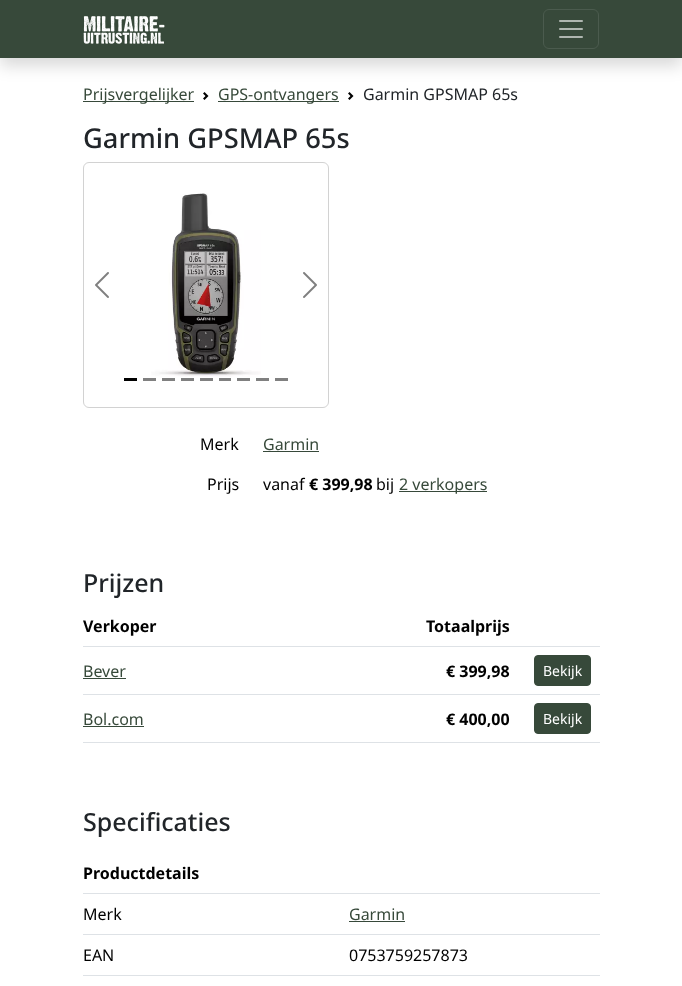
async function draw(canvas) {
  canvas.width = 682;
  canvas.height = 986;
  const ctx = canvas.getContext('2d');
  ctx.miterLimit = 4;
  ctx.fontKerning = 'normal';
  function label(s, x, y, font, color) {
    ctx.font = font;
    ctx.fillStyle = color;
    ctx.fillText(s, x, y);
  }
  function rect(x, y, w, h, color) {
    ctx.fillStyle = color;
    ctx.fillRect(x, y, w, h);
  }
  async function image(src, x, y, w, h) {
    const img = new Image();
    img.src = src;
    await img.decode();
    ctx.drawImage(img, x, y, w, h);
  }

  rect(0, 0, 682, 986, '#fff');
  ctx.fillStyle = '#00000026';
  ctx.filter = 'blur(8px)';
  ctx.beginPath();
  ctx.rect(0, 8, 682, 58);
  ctx.fill();
  ctx.filter = 'none';
  rect(0, 0, 682, 58, '#37493a');
  await image('assets/img1.png', 83, 16, 82, 28);
  ctx.beginPath();
  ctx.roundRect(543.5, 9.5, 55, 39, 5.5);
  ctx.strokeStyle = '#4b5b4e';
  ctx.stroke();
  await image('assets/img2.png', 559, 20, 24, 18);
  rect(83, 101, 111, 1, '#37493a');
  label('Prijsvergelijker', 83, 100, '16px Noto Sans', '#37493a');
  await image('assets/img3.png', 203, 92, 6, 8);
  rect(218, 101, 121, 1, '#37493a');
  label('GPS-ontvangers', 218, 100, '16px Noto Sans', '#37493a');
  await image('assets/img3.png', 348, 92, 6, 8);
  label('Garmin GPSMAP 65s', 363, 100, '16px Noto Sans', '#212529');
  label('Garmin GPSMAP 65s', 83, 148, '500 27.25px Noto Sans', '#212529');
  ctx.beginPath();
  ctx.roundRect(83.5, 162.5, 245, 245, 5.5);
  ctx.strokeStyle = '#d2d2d2';
  ctx.stroke();
  await image('assets/img4.png', 95, 272, 14, 26);
  await image('assets/img5.png', 151, 193, 110, 184);
  await image('assets/img6.png', 303, 272, 14, 26);
  rect(124, 378, 13, 3, '#000');
  rect(143, 378, 13, 3, '#808080');
  rect(162, 378, 13, 3, '#808080');
  rect(181, 378, 13, 3, '#808080');
  rect(200, 378, 13, 3, '#808080');
  rect(219, 378, 12, 3, '#808080');
  rect(237, 378, 13, 3, '#808080');
  rect(256, 378, 13, 3, '#808080');
  rect(275, 378, 13, 3, '#808080');
  label('Merk', 200, 450, '16px Noto Sans', '#000');
  label('Garmin', 263, 450, '16px Noto Sans', '#37493a');
  rect(263, 451, 56, 1, '#37493a');
  label('Prijs', 207, 490, '16px Noto Sans', '#000');
  label('vanaf', 263, 490, '16px Noto Sans', '#000');
  label('€ 399,98', 309, 490, 'bold 16px Noto Sans', '#000');
  label('bij', 376, 490, '16px Noto Sans', '#000');
  rect(399, 491, 88, 1, '#37493a');
  label('2 verkopers', 399, 490, '16px Noto Sans', '#37493a');
  label('Prijzen', 83, 592, '500 25px Noto Sans', '#212529');
  label('Verkoper', 83, 632, 'bold 16px Noto Sans', '#000');
  label('Totaalprijs', 426, 632, 'bold 16px Noto Sans', '#000');
  rect(83, 646, 517, 1, '#dee2e6');
  label('Bever', 83, 677, '16px Noto Sans', '#37493a');
  rect(83, 678, 43, 1, '#37493a');
  label('€ 399,98', 446, 677, 'bold 16px Noto Sans', '#000');
  rect(83, 694, 517, 1, '#dee2e6');
  ctx.fillStyle = '#37493a';
  ctx.beginPath();
  ctx.roundRect(534.5, 655.5, 56, 30, 3.5);
  ctx.fill();
  ctx.strokeStyle = '#37493a';
  ctx.stroke();
  label('Bekijk', 543, 676, '14px Noto Sans', '#fff');
  label('Bol.com', 83, 725, '16px Noto Sans', '#37493a');
  rect(83, 726, 61, 1, '#37493a');
  label('€ 400,00', 446, 725, 'bold 16px Noto Sans', '#000');
  rect(83, 742, 517, 1, '#dee2e6');
  ctx.fillStyle = '#37493a';
  ctx.beginPath();
  ctx.roundRect(534.5, 703.5, 56, 30, 3.5);
  ctx.fill();
  ctx.stroke();
  label('Bekijk', 543, 724, '14px Noto Sans', '#fff');
  label('Specificaties', 83, 831, '500 25px Noto Sans', '#212529');
  rect(83, 893, 517, 1, '#dee2e6');
  label('Productdetails', 83, 879, 'bold 16px Noto Sans', '#000');
  label('Merk', 83, 920, '16px Noto Sans', '#000');
  rect(83, 934, 517, 1, '#dee2e6');
  label('Garmin', 349, 920, '16px Noto Sans', '#37493a');
  rect(349, 921, 56, 1, '#37493a');
  label('EAN', 83, 961, '16px Noto Sans', '#000');
  rect(83, 975, 517, 1, '#dee2e6');
  label('0753759257873', 349, 961, '16px Noto Sans', '#000');
}

draw(document.querySelector('canvas'));
